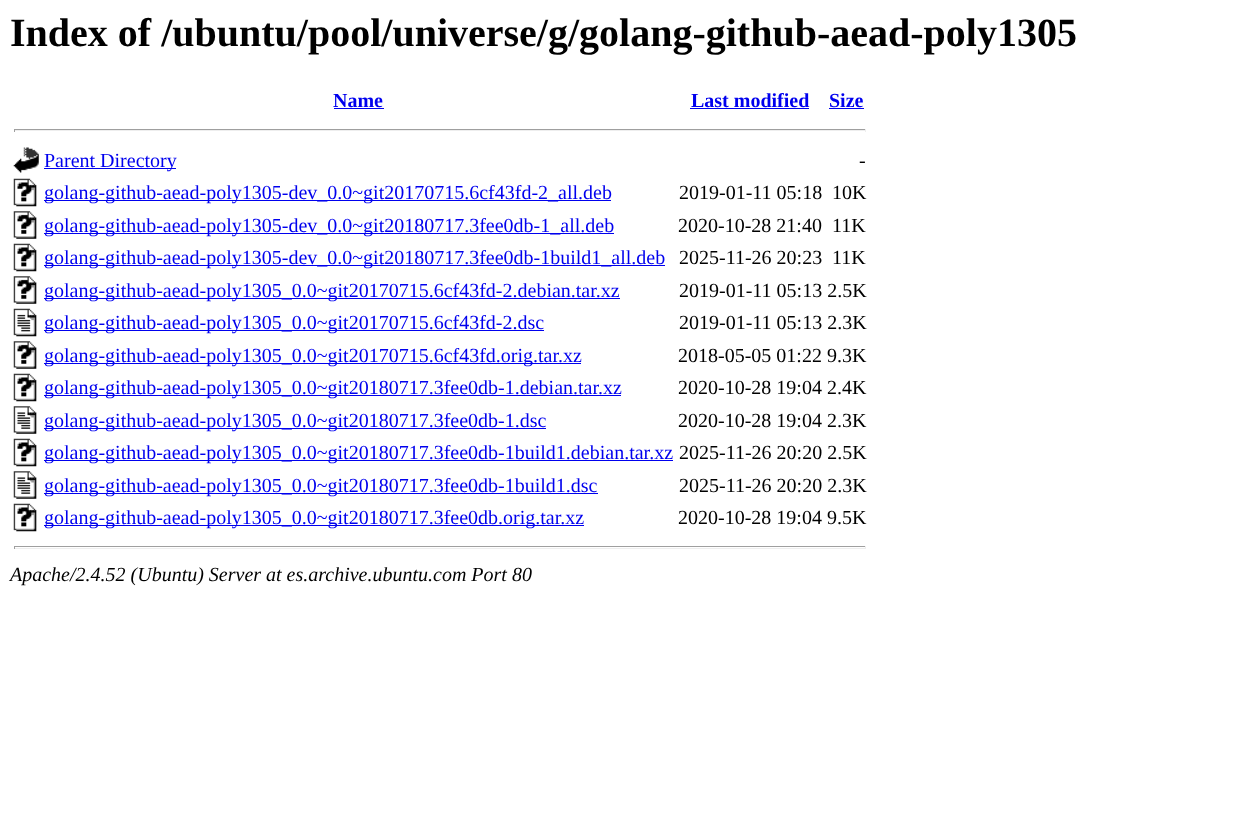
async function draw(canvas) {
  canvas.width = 1248;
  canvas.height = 823;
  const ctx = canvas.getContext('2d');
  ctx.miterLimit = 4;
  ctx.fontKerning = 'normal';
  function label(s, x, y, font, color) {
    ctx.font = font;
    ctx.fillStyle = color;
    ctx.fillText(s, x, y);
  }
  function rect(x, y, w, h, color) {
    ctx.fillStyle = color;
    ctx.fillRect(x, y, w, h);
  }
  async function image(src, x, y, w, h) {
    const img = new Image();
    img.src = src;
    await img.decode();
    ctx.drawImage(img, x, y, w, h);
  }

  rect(0, 0, 1248, 823, '#fff');
  label('Index of /ubuntu/pool/universe/g/golang-github-aead-poly1305', 10, 46, 'bold 40px Liberation Serif', '#000');
  label('Name', 333, 107, 'bold 20px Liberation Serif', '#00e');
  rect(334, 108, 50, 1, '#00e');
  label('Last modified', 691, 107, 'bold 20px Liberation Serif', '#00e');
  rect(690, 108, 119, 1, '#00e');
  label('Size', 829, 107, 'bold 20px Liberation Serif', '#00e');
  rect(829, 108, 35, 1, '#00e');
  rect(14, 129, 852, 1, '#9f9f9f');
  rect(865, 129, 1, 3, '#eee');
  rect(14, 130, 852, 1, '#eee');
  rect(14, 129, 1, 3, '#9f9f9f');
  await image('assets/img1.png', 13, 147, 26, 26);
  rect(44, 168, 132, 1, '#00e');
  label('Parent Directory', 44, 167, '20px Liberation Serif', '#00e');
  label('-', 859, 167, '20px Liberation Serif', '#000');
  await image('assets/img2.png', 13, 178, 24, 29);
  rect(44, 200, 567, 1, '#00e');
  label('golang-github-aead-poly1305-dev_0.0~git20170715.6cf43fd-2_all.deb', 44, 199, '20px Liberation Serif', '#00e');
  label('2019-01-11 05:18', 679, 199, '20px Liberation Serif', '#000');
  label('10K', 832, 199, '20px Liberation Serif', '#000');
  await image('assets/img3.png', 13, 211, 24, 28);
  rect(44, 233, 570, 1, '#00e');
  label('golang-github-aead-poly1305-dev_0.0~git20180717.3fee0db-1_all.deb', 44, 232, '20px Liberation Serif', '#00e');
  label('2020-10-28 21:40', 678, 232, '20px Liberation Serif', '#000');
  label('11K', 832, 232, '20px Liberation Serif', '#000');
  await image('assets/img2.png', 13, 243, 24, 29);
  rect(44, 265, 621, 1, '#00e');
  label('golang-github-aead-poly1305-dev_0.0~git20180717.3fee0db-1build1_all.deb', 44, 264, '20px Liberation Serif', '#00e');
  label('2025-11-26 20:23', 679, 264, '20px Liberation Serif', '#000');
  label('11K', 832, 264, '20px Liberation Serif', '#000');
  await image('assets/img4.png', 13, 276, 24, 28);
  rect(44, 298, 576, 1, '#00e');
  label('golang-github-aead-poly1305_0.0~git20170715.6cf43fd-2.debian.tar.xz', 44, 297, '20px Liberation Serif', '#00e');
  label('2019-01-11 05:13 2.5K', 679, 297, '20px Liberation Serif', '#000');
  await image('assets/img5.png', 13, 308, 24, 29);
  rect(44, 330, 500, 1, '#00e');
  label('golang-github-aead-poly1305_0.0~git20170715.6cf43fd-2.dsc', 44, 329, '20px Liberation Serif', '#00e');
  label('2019-01-11 05:13 2.3K', 679, 329, '20px Liberation Serif', '#000');
  await image('assets/img3.png', 13, 341, 24, 28);
  rect(44, 363, 537, 1, '#00e');
  label('golang-github-aead-poly1305_0.0~git20170715.6cf43fd.orig.tar.xz', 44, 362, '20px Liberation Serif', '#00e');
  label('2018-05-05 01:22 9.3K', 678, 362, '20px Liberation Serif', '#000');
  await image('assets/img2.png', 13, 373, 24, 29);
  rect(44, 395, 577, 1, '#00e');
  label('golang-github-aead-poly1305_0.0~git20180717.3fee0db-1.debian.tar.xz', 44, 394, '20px Liberation Serif', '#00e');
  label('2020-10-28 19:04 2.4K', 678, 394, '20px Liberation Serif', '#000');
  await image('assets/img6.png', 13, 406, 24, 28);
  rect(44, 428, 502, 1, '#00e');
  label('golang-github-aead-poly1305_0.0~git20180717.3fee0db-1.dsc', 44, 427, '20px Liberation Serif', '#00e');
  label('2020-10-28 19:04 2.3K', 678, 427, '20px Liberation Serif', '#000');
  await image('assets/img2.png', 13, 438, 24, 29);
  rect(44, 460, 629, 1, '#00e');
  label('golang-github-aead-poly1305_0.0~git20180717.3fee0db-1build1.debian.tar.xz', 44, 459, '20px Liberation Serif', '#00e');
  label('2025-11-26 20:20 2.5K', 679, 459, '20px Liberation Serif', '#000');
  await image('assets/img6.png', 13, 471, 24, 28);
  rect(44, 493, 554, 1, '#00e');
  label('golang-github-aead-poly1305_0.0~git20180717.3fee0db-1build1.dsc', 44, 492, '20px Liberation Serif', '#00e');
  label('2025-11-26 20:20 2.3K', 679, 492, '20px Liberation Serif', '#000');
  await image('assets/img2.png', 13, 503, 24, 29);
  rect(44, 525, 540, 1, '#00e');
  label('golang-github-aead-poly1305_0.0~git20180717.3fee0db.orig.tar.xz', 44, 524, '20px Liberation Serif', '#00e');
  label('2020-10-28 19:04 9.5K', 678, 524, '20px Liberation Serif', '#000');
  rect(14, 546, 852, 1, '#9f9f9f');
  rect(865, 546, 1, 3, '#eee');
  rect(14, 548, 852, 1, '#eee');
  rect(14, 546, 1, 3, '#9f9f9f');
  label('Apache/2.4.52 (Ubuntu) Server at es.archive.ubuntu.com Port 80', 10, 581, 'italic 20px Liberation Serif', '#000');
}

draw(document.querySelector('canvas'));
